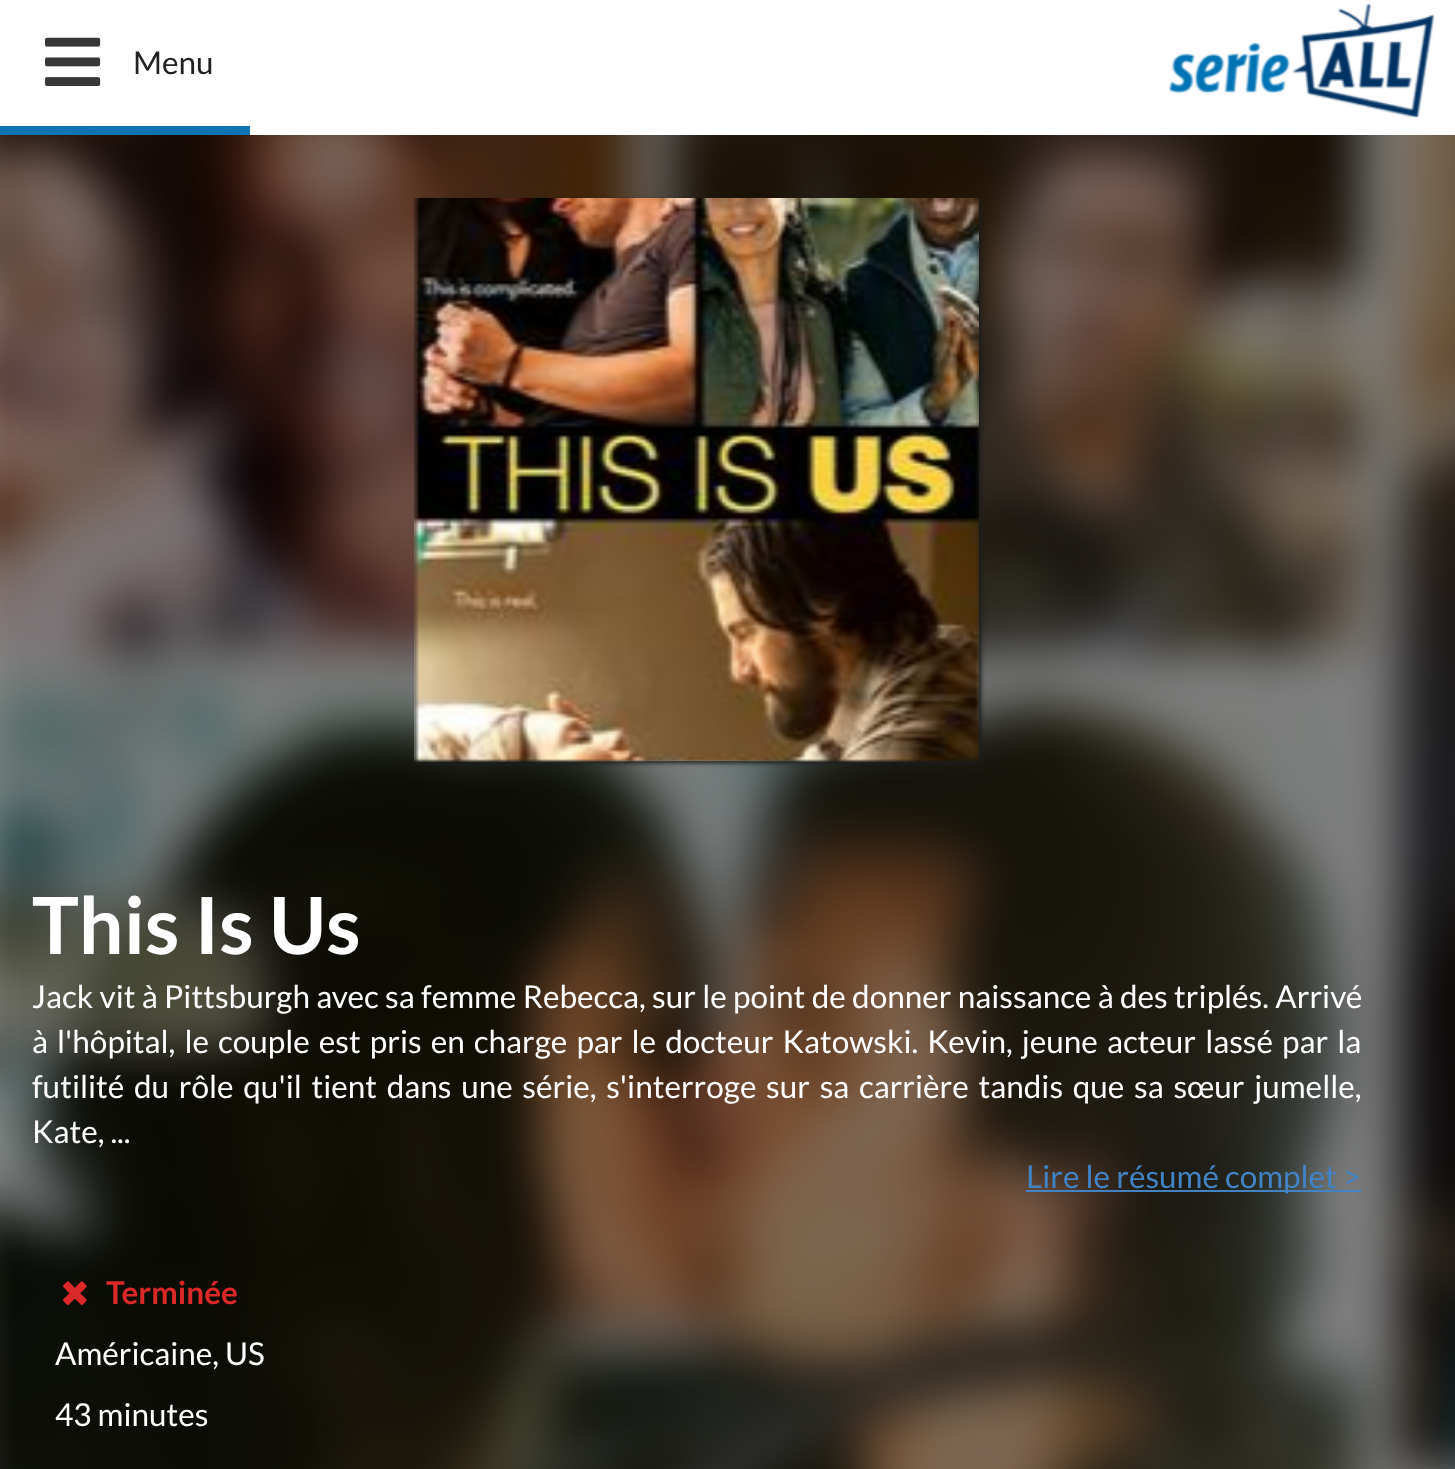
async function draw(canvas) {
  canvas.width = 1455;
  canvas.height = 1469;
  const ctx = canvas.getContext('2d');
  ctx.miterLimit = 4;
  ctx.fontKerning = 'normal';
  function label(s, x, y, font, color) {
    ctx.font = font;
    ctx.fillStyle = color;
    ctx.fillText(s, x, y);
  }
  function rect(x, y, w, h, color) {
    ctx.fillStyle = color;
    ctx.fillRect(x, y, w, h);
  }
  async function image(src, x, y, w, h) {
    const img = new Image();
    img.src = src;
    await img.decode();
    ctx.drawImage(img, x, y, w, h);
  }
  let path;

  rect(0, 0, 1455, 1469, '#fff');
  rect(0, 126, 250, 9, '#1074b2');
  await image('assets/img1.png', 45, 37, 56, 49);
  label('Menu', 133, 74, '31.5px Lato', '#212121');
  await image('assets/img2.png', 1169, 4, 265, 113);
  await image('assets/img3.png', 0, 135, 1455, 1334);
  ctx.save();
  path = new Path2D('M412 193H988V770H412ZM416 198H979V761H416Z');
  ctx.clip(path, 'evenodd');
  ctx.fillStyle = '#1b1c1d';
  ctx.filter = 'blur(2px)';
  ctx.beginPath();
  ctx.rect(419, 200, 562, 563);
  ctx.fill();
  ctx.filter = 'none';
  ctx.restore();
  await image('assets/img4.png', 414, 198, 565, 564);
  label('This Is Us', 32, 954, 'bold 78.75px Lato', '#fff');
  ctx.wordSpacing = '0.25px';
  label('Jack vit à Pittsburgh avec sa femme Rebecca, sur le point de donner naissance à des triplés. Arrivé', 32, 1008, '31.5px Lato', '#fff');
  ctx.wordSpacing = '3px';
  label('à l\'hôpital, le couple est pris en charge par le docteur Katowski. Kevin, jeune acteur lassé par la', 32, 1053, '31.5px Lato', '#fff');
  ctx.wordSpacing = '3.6px';
  label('futilité du rôle qu\'il tient dans une série, s\'interroge sur sa carrière tandis que sa sœur jumelle,', 32, 1098, '31.5px Lato', '#fff');
  ctx.wordSpacing = '0px';
  label('Kate, ...', 32, 1143, '31.5px Lato', '#fff');
  rect(1026, 1190, 335, 2, '#4183c4');
  label('Lire le résumé complet >', 1026, 1188, '31.5px Lato', '#4183c4');
  await image('assets/img5.png', 63, 1281, 24, 24);
  label('Terminée', 106, 1304, 'bold 31.5px Lato', '#db2828');
  label('Américaine, US', 55, 1365, '31.5px Lato', '#fff');
  label('43 minutes', 55, 1426, '31.5px Lato', '#fff');
}

draw(document.querySelector('canvas'));
